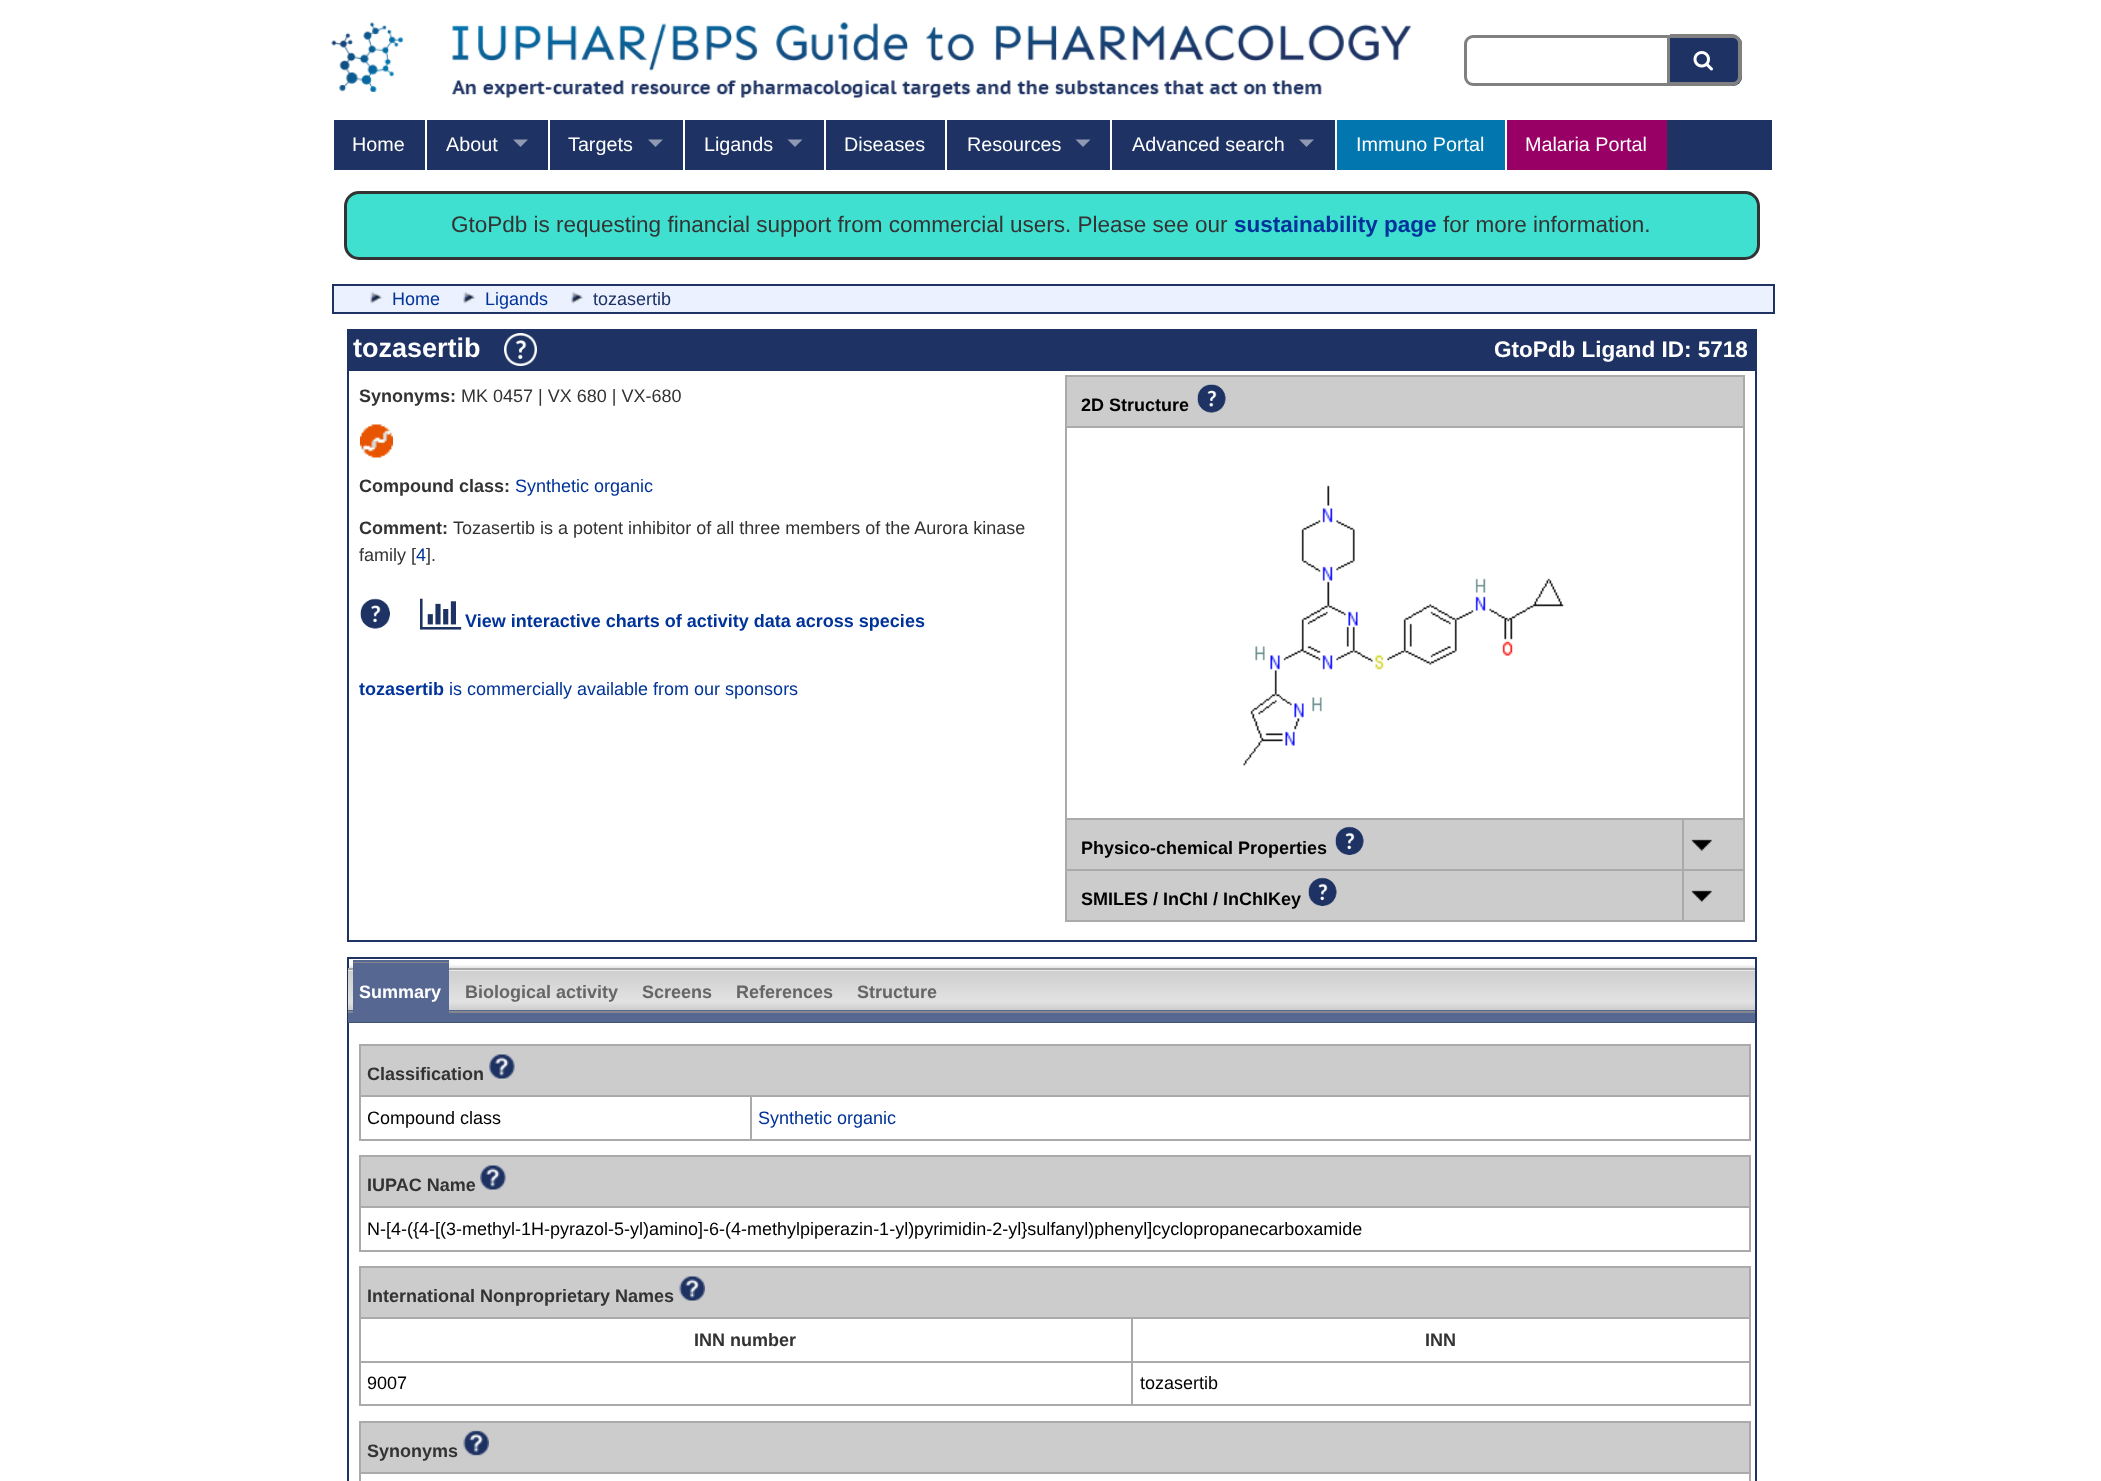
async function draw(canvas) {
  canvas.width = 2101;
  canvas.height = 1481;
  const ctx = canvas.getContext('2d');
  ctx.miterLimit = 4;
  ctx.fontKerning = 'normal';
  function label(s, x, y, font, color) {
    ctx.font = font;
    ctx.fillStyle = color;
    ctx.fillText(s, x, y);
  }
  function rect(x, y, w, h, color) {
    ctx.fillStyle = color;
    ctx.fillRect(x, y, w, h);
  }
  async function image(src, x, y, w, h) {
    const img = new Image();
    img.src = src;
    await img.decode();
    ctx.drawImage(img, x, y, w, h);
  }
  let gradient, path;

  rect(0, 0, 2101, 1481, '#fff');
  await image('assets/img1.png', 331, 22, 1081, 76);
  ctx.beginPath();
  ctx.roundRect(1465.5, 36.5, 203, 48, [7.5, 0, 0, 7.5]);
  ctx.strokeStyle = '#808080';
  ctx.lineWidth = 3;
  ctx.stroke();
  ctx.fillStyle = '#1e3363';
  ctx.beginPath();
  ctx.roundRect(1670, 35, 72, 51, [0, 9, 9, 0]);
  ctx.fill();
  ctx.fillStyle = '#808080';
  path = new Path2D('M1670 34H1732C1737 34 1742 39 1742 44V76C1742 81 1737 86 1732 86H1670ZM1670 38H1732C1736 38 1738 40 1738 44V76C1738 80 1736 82 1732 82H1670Z');
  ctx.fill(path, 'evenodd');
  await image('assets/img2.png', 1693, 51, 20, 20);
  rect(334, 120, 1438, 50, '#1e3363');
  label('Home', 352, 151, '19.75px Liberation Sans', '#fff');
  rect(425, 120, 2, 50, '#fff');
  label('About', 446, 151, '19.75px Liberation Sans', '#fff');
  ctx.fillStyle = '#8f99b1';
  path = new Path2D('M513 139.5H528L520.5 147Z');
  ctx.fill(path);
  rect(548, 120, 2, 50, '#fff');
  label('Targets', 568, 151, '19.75px Liberation Sans', '#fff');
  ctx.fillStyle = '#8f99b1';
  path = new Path2D('M648 139.5H663L655.5 147Z');
  ctx.fill(path);
  rect(683, 120, 2, 50, '#fff');
  label('Ligands', 704, 151, '19.75px Liberation Sans', '#fff');
  ctx.fillStyle = '#8f99b1';
  path = new Path2D('M787.5 139.5H802.5L795 147Z');
  ctx.fill(path);
  rect(824, 120, 2, 50, '#fff');
  label('Diseases', 844, 151, '19.75px Liberation Sans', '#fff');
  rect(945, 120, 2, 50, '#fff');
  label('Resources', 967, 151, '19.75px Liberation Sans', '#fff');
  ctx.fillStyle = '#8f99b1';
  path = new Path2D('M1075.5 139.5H1090.5L1083 147Z');
  ctx.fill(path);
  rect(1110, 120, 2, 50, '#fff');
  label('Advanced search', 1132, 151, '19.75px Liberation Sans', '#fff');
  ctx.fillStyle = '#8f99b1';
  path = new Path2D('M1299 139.5H1314L1306.5 147Z');
  ctx.fill(path);
  rect(1337, 120, 168, 50, '#0176af');
  rect(1335, 120, 2, 50, '#fff');
  label('Immuno Portal', 1356, 151, '19.75px Liberation Sans', '#fff');
  rect(1507, 120, 160, 50, '#906');
  rect(1505, 120, 2, 50, '#fff');
  label('Malaria Portal', 1525, 151, '19.75px Liberation Sans', '#fff');
  ctx.fillStyle = '#40e0d0';
  ctx.beginPath();
  ctx.roundRect(345.5, 192.5, 1413, 66, 13.5);
  ctx.fill();
  ctx.strokeStyle = '#333';
  ctx.stroke();
  label('GtoPdb is requesting financial support from commercial users. Please see our', 451, 232, '22.5px Liberation Sans', '#333');
  label('sustainability page', 1234, 232, 'bold 22.5px Liberation Sans', '#039');
  label('for more information.', 1443, 232, '22.5px Liberation Sans', '#333');
  ctx.fillStyle = '#ebf1ff';
  ctx.beginPath();
  ctx.rect(333, 285, 1441, 28);
  ctx.fill();
  ctx.strokeStyle = '#1e3363';
  ctx.lineWidth = 2;
  ctx.stroke();
  await image('assets/img3.png', 370, 292, 13, 12);
  label('Home', 392, 305, '18px Liberation Sans', '#039');
  await image('assets/img3.png', 463, 292, 13, 12);
  label('Ligands', 485, 305, '18px Liberation Sans', '#039');
  await image('assets/img3.png', 571, 292, 13, 12);
  label('tozasertib', 593, 305, '18px Liberation Sans', '#1e3363');
  rect(347, 329, 1410, 40, '#1e3363');
  label('tozasertib', 353, 357, 'bold 27px Liberation Sans', '#fff');
  await image('assets/img4.png', 504, 333, 33, 33);
  label('GtoPdb Ligand ID: 5718', 1494, 357, 'bold 22.5px Liberation Sans', '#fff');
  ctx.strokeRect(348, 370, 1408, 571);
  label('Synonyms:', 359, 402, 'bold 18px Liberation Sans', '#333');
  label('MK 0457 | VX 680 | VX-680', 461, 402, '18px Liberation Sans', '#333');
  await image('assets/img5.png', 360, 424, 33, 34);
  label('Compound class:', 359, 492, 'bold 18px Liberation Sans', '#333');
  label('Synthetic organic', 515, 492, '18px Liberation Sans', '#039');
  label('Comment:', 359, 534, 'bold 18px Liberation Sans', '#333');
  label('Tozasertib is a potent inhibitor of all three members of the Aurora kinase', 453, 534, '18px Liberation Sans', '#333');
  label('family [', 359, 561, '18px Liberation Sans', '#333');
  label('4', 416, 561, '18px Liberation Sans', '#039');
  label('].', 426, 561, '18px Liberation Sans', '#333');
  await image('assets/img6.png', 360, 598, 30, 31);
  await image('assets/img7.png', 420, 598, 42, 32);
  label('View interactive charts of activity data across species', 465, 627, 'bold 18px Liberation Sans', '#039');
  label('tozasertib', 359, 695, 'bold 18px Liberation Sans', '#039');
  label('is commercially available from our sponsors', 449, 695, '18px Liberation Sans', '#039');
  rect(1065, 375, 680, 2, '#aaa');
  rect(1065, 426, 680, 2, '#aaa');
  rect(1065, 818, 680, 2, '#aaa');
  rect(1065, 869, 680, 2, '#aaa');
  rect(1065, 920, 680, 2, '#aaa');
  rect(1743, 869, 2, 52, '#aaa');
  rect(1743, 818, 2, 52, '#aaa');
  rect(1743, 426, 2, 393, '#aaa');
  rect(1743, 375, 2, 53, '#aaa');
  rect(1065, 869, 2, 52, '#aaa');
  rect(1065, 818, 2, 52, '#aaa');
  rect(1065, 426, 2, 393, '#aaa');
  rect(1065, 375, 2, 53, '#aaa');
  rect(1067, 377, 676, 49, '#ccc');
  label('2D Structure', 1081, 411, 'bold 18px Liberation Sans', '#000');
  await image('assets/img8.png', 1197, 384, 29, 29);
  await image('assets/img9.png', 1243, 485, 321, 281);
  rect(1067, 820, 615, 49, '#ccc');
  label('Physico-chemical Properties', 1081, 854, 'bold 18px Liberation Sans', '#000');
  await image('assets/img10.png', 1335, 826, 29, 29);
  rect(1684, 820, 59, 49, '#ccc');
  await image('assets/img11.png', 1691, 839, 21, 12);
  rect(1067, 871, 615, 49, '#ccc');
  label('SMILES / InChI / InChIKey', 1081, 905, 'bold 18px Liberation Sans', '#000');
  await image('assets/img10.png', 1308, 877, 29, 29);
  rect(1684, 871, 59, 49, '#ccc');
  rect(1682, 818, 2, 103, '#aaa');
  await image('assets/img11.png', 1691, 890, 21, 12);
  ctx.strokeRect(348, 958, 1408, 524);
  ctx.fillStyle = '#0000001a';
  ctx.filter = 'blur(1px)';
  ctx.beginPath();
  ctx.rect(348, 966, 1407, 42);
  ctx.fill();
  ctx.filter = 'none';
  rect(348, 1022, 1407, 1, '#455375');
  rect(348, 1013, 1407, 9, '#566892');
  rect(348, 1011, 1407, 2, '#85878c');
  rect(348, 1010, 1407, 1, '#566892');
  gradient = ctx.createLinearGradient(1052, 969, 1052, 1010);
  gradient.addColorStop(0, '#cdcdcd');
  gradient.addColorStop(0.8, '#e2e2e2');
  gradient.addColorStop(1, '#cdcdcd');
  ctx.fillStyle = gradient;
  ctx.fillRect(348, 971, 1407, 39);
  rect(348, 970, 1407, 1, '#e9e9e9');
  rect(348, 968, 1407, 2, '#a8a8a8');
  ctx.fillStyle = '#566892';
  path = new Path2D('M353 960V969H448V1005H449V960Z');
  ctx.fill(path);
  ctx.fillStyle = '#85878c';
  path = new Path2D('M353 962V969H448V1007H449V962Z');
  ctx.fill(path);
  ctx.fillStyle = '#566892';
  path = new Path2D('M353 963V969H448V1008H449V963Z');
  ctx.fill(path);
  rect(353, 969, 96, 44, '#566892');
  label('Summary', 359, 998, 'bold 18px Liberation Sans', '#fff');
  label('Biological activity', 465, 998, 'bold 18px Liberation Sans', '#666');
  label('Screens', 642, 998, 'bold 18px Liberation Sans', '#666');
  label('References', 736, 998, 'bold 18px Liberation Sans', '#666');
  label('Structure', 857, 998, 'bold 18px Liberation Sans', '#666');
  rect(361, 1046, 1388, 49, '#ccc');
  rect(359, 1044, 1392, 2, '#aaa');
  rect(750, 1095, 1001, 2, '#aaa');
  rect(1749, 1095, 2, 45, '#aaa');
  rect(1749, 1044, 2, 53, '#aaa');
  rect(750, 1139, 1001, 2, '#aaa');
  rect(750, 1095, 2, 45, '#aaa');
  rect(359, 1095, 393, 2, '#aaa');
  rect(359, 1139, 393, 2, '#aaa');
  rect(359, 1095, 2, 45, '#aaa');
  rect(359, 1044, 2, 53, '#aaa');
  label('Classification', 367, 1080, 'bold 18px Liberation Sans', '#333');
  await image('assets/img12.png', 489, 1053, 26, 27);
  label('Compound class', 367, 1124, '18px Liberation Sans', '#000');
  label('Synthetic organic', 758, 1124, '18px Liberation Sans', '#039');
  rect(361, 1157, 1388, 49, '#ccc');
  rect(359, 1155, 1392, 2, '#aaa');
  rect(359, 1206, 1392, 2, '#aaa');
  rect(1749, 1206, 2, 45, '#aaa');
  rect(1749, 1155, 2, 53, '#aaa');
  rect(359, 1250, 1392, 2, '#aaa');
  rect(359, 1206, 2, 45, '#aaa');
  rect(359, 1155, 2, 53, '#aaa');
  label('IUPAC Name', 367, 1191, 'bold 18px Liberation Sans', '#333');
  await image('assets/img13.png', 480, 1164, 26, 27);
  label('N-[4-({4-[(3-methyl-1H-pyrazol-5-yl)amino]-6-(4-methylpiperazin-1-yl)pyrimidin-2-yl}sulfanyl)phenyl]cyclopropanecarboxamide', 367, 1235, '18px Liberation Sans', '#000');
  rect(361, 1268, 1388, 49, '#ccc');
  rect(359, 1266, 1392, 2, '#aaa');
  rect(1131, 1317, 620, 2, '#aaa');
  rect(359, 1361, 1392, 2, '#aaa');
  rect(1749, 1361, 2, 45, '#aaa');
  rect(1749, 1317, 2, 45, '#aaa');
  rect(1749, 1266, 2, 53, '#aaa');
  rect(359, 1404, 1392, 2, '#aaa');
  rect(1131, 1361, 2, 45, '#aaa');
  rect(1131, 1317, 2, 45, '#aaa');
  rect(359, 1317, 774, 2, '#aaa');
  rect(359, 1361, 2, 45, '#aaa');
  rect(359, 1317, 2, 45, '#aaa');
  rect(359, 1266, 2, 53, '#aaa');
  label('International Nonproprietary Names', 367, 1302, 'bold 18px Liberation Sans', '#333');
  await image('assets/img14.png', 679, 1275, 26, 27);
  label('INN number', 694, 1346, 'bold 18px Liberation Sans', '#333');
  label('INN', 1425, 1346, 'bold 18px Liberation Sans', '#333');
  label('9007', 367, 1389, '18px Liberation Sans', '#000');
  label('tozasertib', 1140, 1389, '18px Liberation Sans', '#000');
  rect(361, 1423, 1388, 49, '#ccc');
  rect(359, 1421, 1392, 2, '#aaa');
  rect(359, 1472, 1392, 2, '#aaa');
  rect(1749, 1472, 2, 9, '#aaa');
  rect(1749, 1421, 2, 52, '#aaa');
  rect(359, 1472, 2, 9, '#aaa');
  rect(359, 1421, 2, 52, '#aaa');
  label('Synonyms', 367, 1457, 'bold 18px Liberation Sans', '#333');
  await image('assets/img15.png', 463, 1430, 26, 26);
}

draw(document.querySelector('canvas'));
